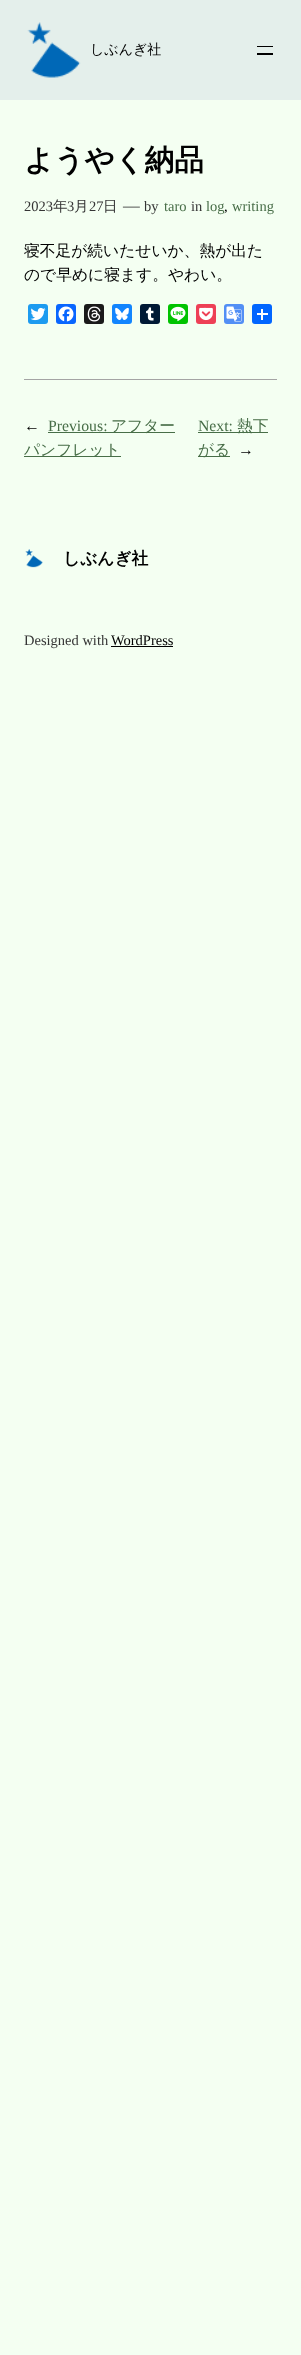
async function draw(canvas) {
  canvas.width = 301;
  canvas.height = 2355;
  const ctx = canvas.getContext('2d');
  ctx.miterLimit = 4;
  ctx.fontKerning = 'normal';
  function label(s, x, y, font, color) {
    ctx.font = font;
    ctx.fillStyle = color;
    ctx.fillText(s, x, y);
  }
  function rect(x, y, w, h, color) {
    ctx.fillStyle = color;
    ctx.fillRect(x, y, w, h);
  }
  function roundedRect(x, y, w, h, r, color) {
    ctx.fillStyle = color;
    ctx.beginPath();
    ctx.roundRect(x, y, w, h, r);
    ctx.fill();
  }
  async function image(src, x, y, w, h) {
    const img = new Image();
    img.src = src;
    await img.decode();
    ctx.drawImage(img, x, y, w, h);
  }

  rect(0, 0, 301, 2355, '#f4fff2');
  rect(0, 0, 301, 100, '#e4efeb');
  await image('assets/img1.png', 27, 22, 54, 56);
  label('しぶんぎ社', 90, 54, '500 14px WenQuanYi Zen Hei', '#000');
  rect(257, 46, 16, 1, '#000');
  rect(257, 53, 16, 2, '#000');
  label('ようやく納品', 24, 170, 'bold 29.5px WenQuanYi Zen Hei', '#000');
  label('2023', 24, 211, '14.5px Liberation Serif', '#353535');
  label('年', 53, 211, '500 14.5px WenQuanYi Zen Hei', '#353535');
  label('3', 67, 211, '14.5px Liberation Serif', '#353535');
  label('月', 74, 211, '500 14.5px WenQuanYi Zen Hei', '#353535');
  label('27', 89, 211, '14.5px Liberation Serif', '#353535');
  label('日', 103, 211, '500 14.5px WenQuanYi Zen Hei', '#353535');
  label('—', 123, 211, '16.75px Liberation Serif', '#353535');
  label('by', 144, 211, '14.5px Liberation Serif', '#353535');
  label('taro', 164, 211, '14.5px Liberation Serif', '#486e48');
  label('in', 191, 211, '14.5px Liberation Serif', '#353535');
  label('log', 206, 211, '14.5px Liberation Serif', '#486e48');
  label(',', 224, 211, '14.5px Liberation Serif', '#000');
  label('writing', 232, 211, '14.5px Liberation Serif', '#486e48');
  label('寝不足が続いたせいか、熱が出た', 24, 256, '500 15.75px WenQuanYi Zen Hei', '#000');
  label('ので早めに寝ます。やわい。', 24, 280, '500 15.75px WenQuanYi Zen Hei', '#000');
  roundedRect(28, 304, 20, 20, 3, '#1d9bf0');
  await image('assets/img2.png', 30, 307, 16, 14);
  roundedRect(56, 304, 20, 20, 3, '#0866ff');
  await image('assets/img3.png', 58, 306, 16, 16);
  roundedRect(84, 304, 20, 20, 3, '#1a1a1a');
  await image('assets/img4.png', 87, 306, 14, 16);
  roundedRect(112, 304, 20, 20, 3, '#1285fe');
  await image('assets/img5.png', 115, 307, 14, 13);
  roundedRect(140, 304, 20, 20, 3, '#001935');
  await image('assets/img6.png', 146, 307, 8, 14);
  roundedRect(168, 304, 20, 20, 3, '#00c300');
  await image('assets/img7.png', 170, 306, 16, 16);
  roundedRect(196, 304, 20, 20, 3, '#ee4056');
  await image('assets/img8.png', 199, 307, 14, 14);
  roundedRect(224, 304, 20, 20, 3, '#528ff5');
  await image('assets/img9.png', 226, 306, 16, 16);
  roundedRect(252, 304, 20, 20, 3, '#0166ff');
  rect(261, 309, 2, 11, '#fff');
  rect(257, 313, 11, 2, '#fff');
  rect(24, 379, 253, 1, '#a4a4a4');
  label('←', 24, 431, '15.75px Liberation Serif', '#000');
  label('Previous:', 48, 431, '15.75px Liberation Serif', '#486e48');
  rect(48, 432, 127, 1, '#486e48');
  label('アフター', 111, 431, '500 15.75px WenQuanYi Zen Hei', '#486e48');
  rect(24, 456, 97, 1, '#486e48');
  label('パンフレット', 24, 455, '500 15.75px WenQuanYi Zen Hei', '#486e48');
  label('Next:', 198, 431, '15.75px Liberation Serif', '#486e48');
  rect(198, 432, 70, 1, '#486e48');
  label('熱下', 237, 431, '500 15.75px WenQuanYi Zen Hei', '#486e48');
  rect(198, 456, 32, 1, '#486e48');
  label('がる', 198, 455, '500 15.75px WenQuanYi Zen Hei', '#486e48');
  label('→', 238, 455, '15.75px Liberation Serif', '#000');
  await image('assets/img10.png', 25, 549, 18, 19);
  label('しぶんぎ社', 63, 564, 'bold 16.75px WenQuanYi Zen Hei', '#000');
  label('Designed with', 24, 645, '14.5px Liberation Serif', '#353535');
  label('WordPress', 111, 645, '14.5px Liberation Serif', '#000');
  rect(111, 646, 62, 1, '#000');
}

draw(document.querySelector('canvas'));
